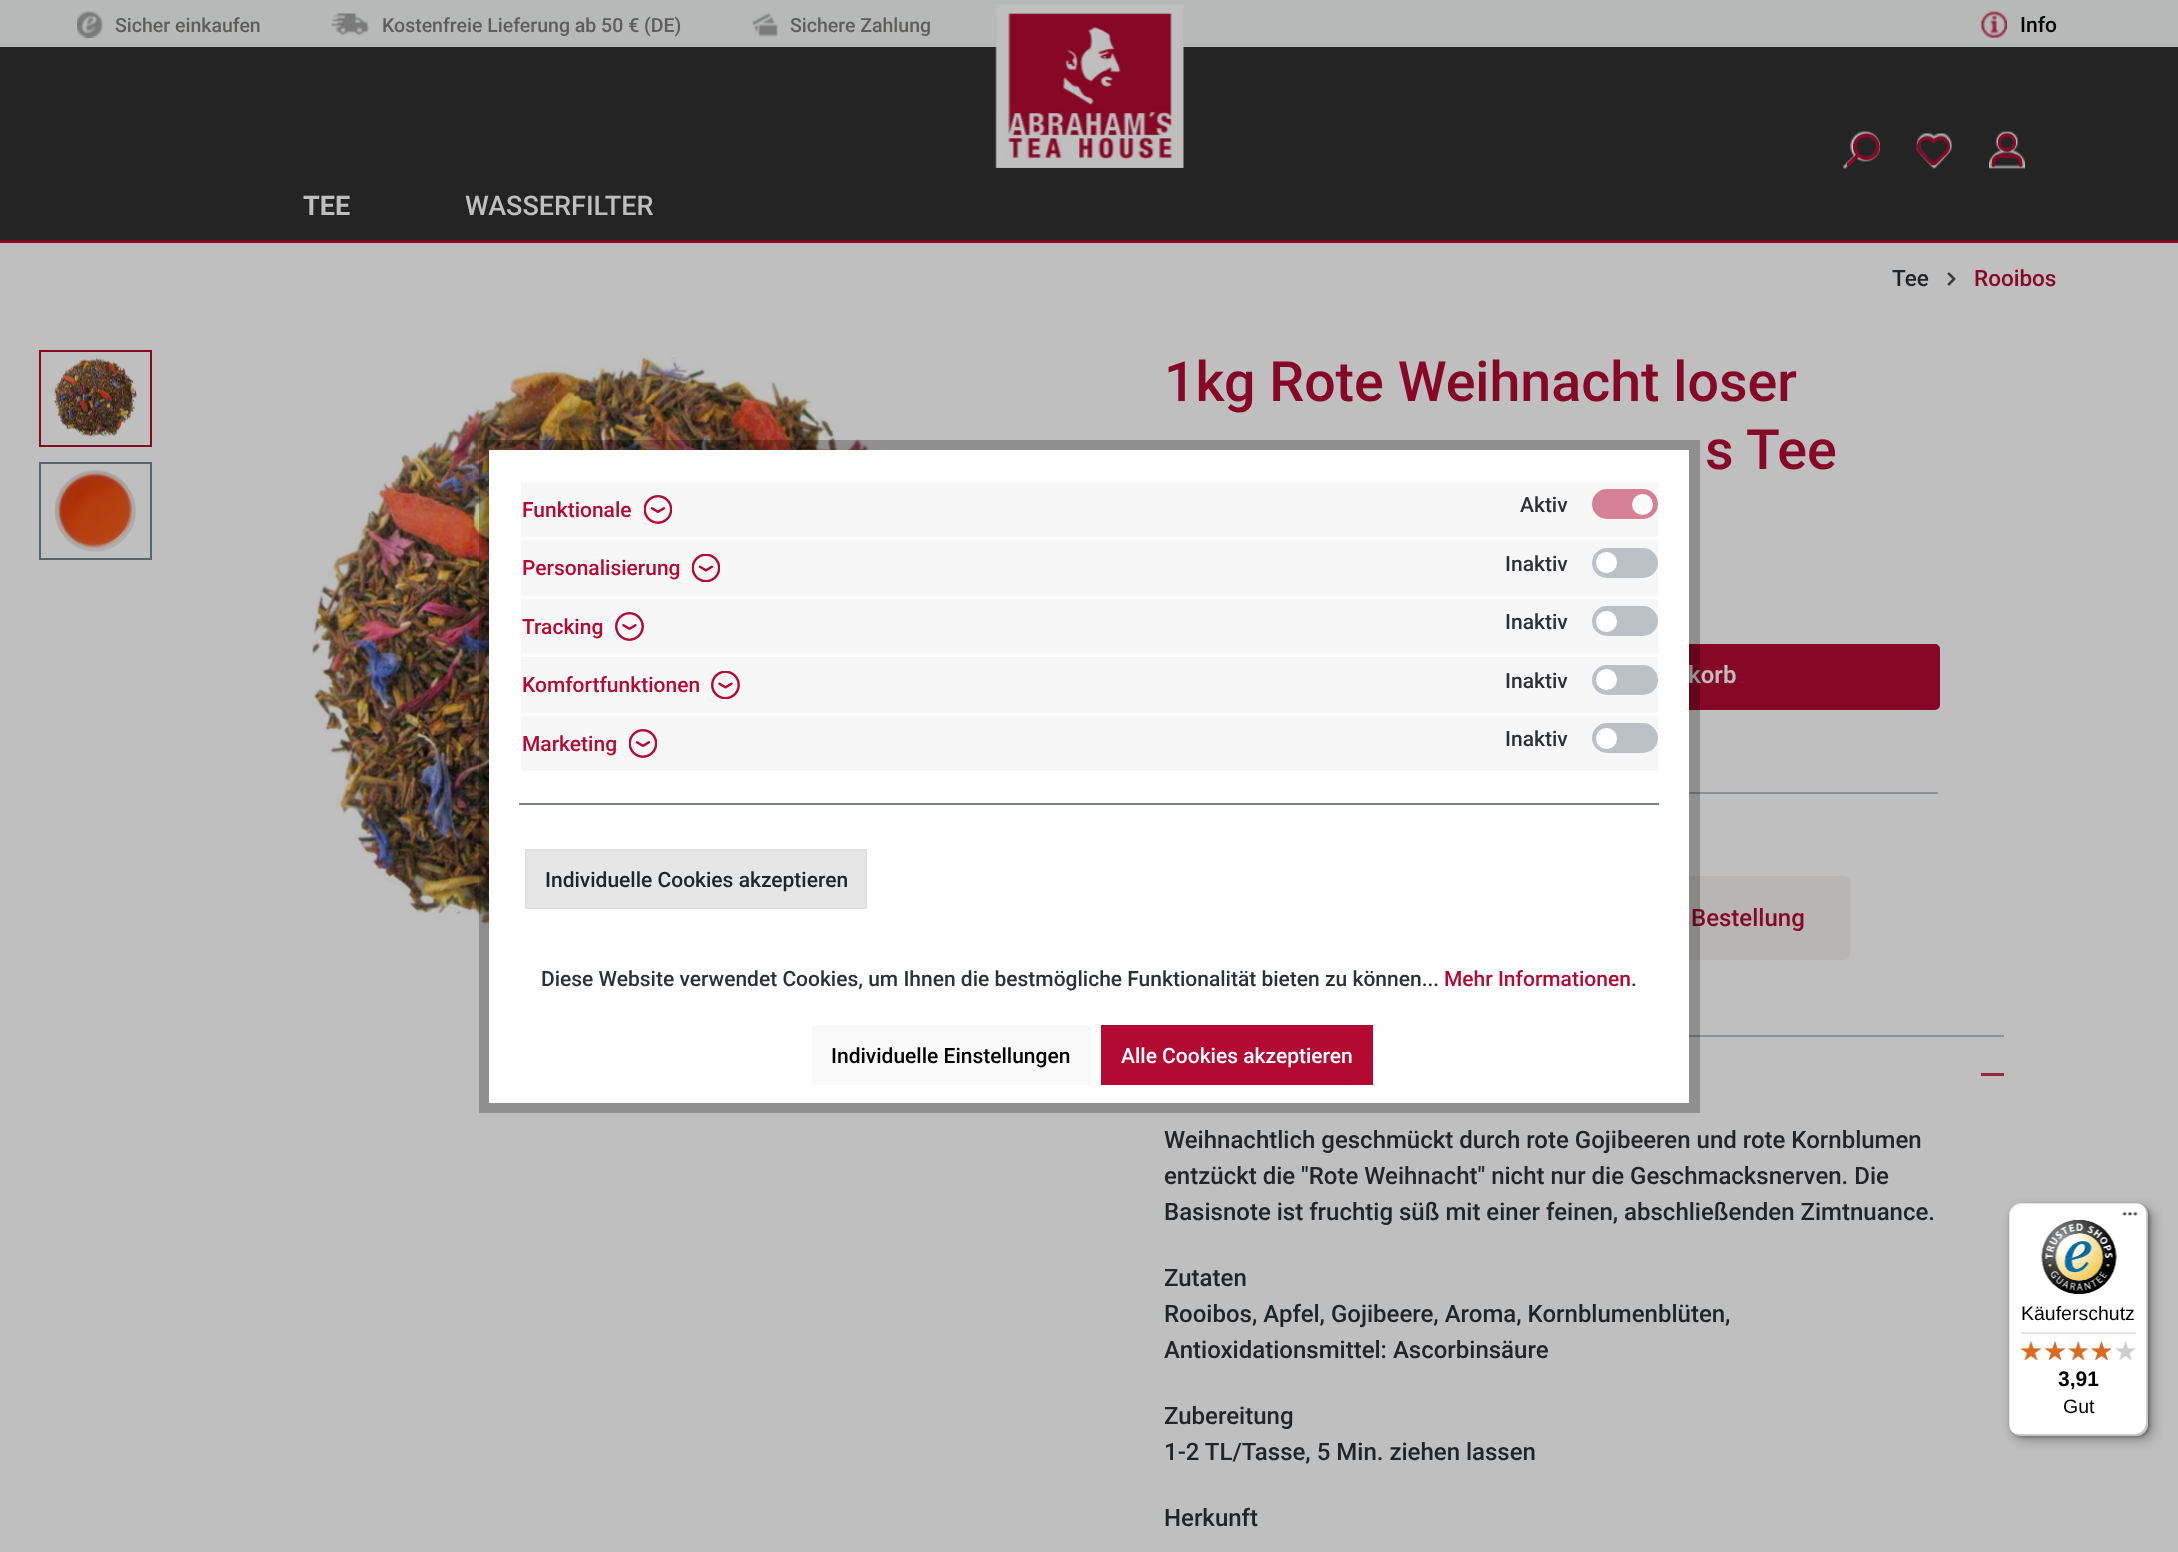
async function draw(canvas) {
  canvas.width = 2178;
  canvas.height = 1552;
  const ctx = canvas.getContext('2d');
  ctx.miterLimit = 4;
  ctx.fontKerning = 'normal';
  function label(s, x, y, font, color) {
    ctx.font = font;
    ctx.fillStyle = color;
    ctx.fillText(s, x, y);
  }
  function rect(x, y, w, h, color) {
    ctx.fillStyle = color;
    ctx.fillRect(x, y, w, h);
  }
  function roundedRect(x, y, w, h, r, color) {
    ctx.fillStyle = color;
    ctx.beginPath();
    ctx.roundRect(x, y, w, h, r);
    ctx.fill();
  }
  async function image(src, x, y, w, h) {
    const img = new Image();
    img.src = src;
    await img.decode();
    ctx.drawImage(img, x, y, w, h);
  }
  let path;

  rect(0, 0, 2178, 1552, '#bfbfbf');
  rect(0, 0, 2178, 47, '#b7b8b8');
  rect(0, 47, 2178, 193, '#242424');
  await image('assets/img1.png', 995, 4, 189, 164);
  await image('assets/img2.png', 1843, 131, 37, 38);
  await image('assets/img3.png', 1846, 133, 34, 34);
  await image('assets/img4.png', 1916, 133, 36, 36);
  await image('assets/img5.png', 1917, 136, 33, 30);
  await image('assets/img6.png', 1989, 131, 36, 38);
  await image('assets/img7.png', 1992, 133, 30, 34);
  await image('assets/img8.png', 77, 11, 26, 27);
  label('Sicher einkaufen', 115, 32, '500 19.5px Roboto', '#5e5d5c');
  await image('assets/img9.png', 331, 13, 39, 22);
  label('Kostenfreie Lieferung ab 50 € (DE)', 382, 32, '500 19.5px Roboto', '#5e5d5c');
  await image('assets/img10.png', 752, 13, 26, 24);
  label('Sichere Zahlung', 790, 32, '500 19.5px Roboto', '#5e5d5c');
  await image('assets/img11.png', 1981, 11, 26, 27);
  label('Info', 2020, 32, '500 21px Roboto', '#000');
  rect(0, 240, 2178, 3, '#870726');
  label('TEE', 303, 215, 'bold 27px Roboto', '#bfbfbf');
  label('WASSERFILTER', 465, 215, '500 27px Roboto', '#bfbfbf');
  label('Tee', 1892, 286, '500 22.5px Roboto', '#202529');
  await image('assets/img12.png', 1947, 272, 9, 14);
  label('Rooibos', 1974, 286, '500 22.5px Roboto', '#870726');
  ctx.strokeStyle = '#870726';
  ctx.lineWidth = 2;
  ctx.strokeRect(40, 351, 111, 95);
  await image('assets/img13.png', 54, 357, 83, 80);
  ctx.strokeStyle = '#5b636c';
  ctx.strokeRect(40, 463, 111, 96);
  await image('assets/img14.png', 54, 470, 82, 82);
  await image('assets/img15.png', 312, 356, 646, 614);
  label('1kg Rote Weihnacht loser', 1164, 401, '500 55.5px Roboto', '#870726');
  label('s Tee', 1705, 469, '500 55.5px Roboto', '#870726');
  ctx.beginPath();
  ctx.roundRect(1345, 645, 594, 64, 4);
  ctx.fill();
  ctx.strokeStyle = '#870726';
  ctx.stroke();
  label('korb', 1688, 683, '600 24px Roboto', '#bfbfbf');
  rect(1689, 792, 249, 2, '#8d9195');
  roundedRect(1194, 876, 656, 84, 6, '#b7b6b5');
  label('Bestellung', 1691, 926, '500 24px Roboto', '#870726');
  rect(1689, 1035, 315, 2, '#8d9195');
  rect(1981, 1073, 23, 3, '#922a42');
  label('Weihnachtlich geschmückt durch rote Gojibeeren und rote Kornblumen', 1164, 1148, '500 24px Roboto', '#202529');
  label('entzückt die "Rote Weihnacht" nicht nur die Geschmacksnerven. Die', 1164, 1184, '500 24px Roboto', '#202529');
  label('Basisnote ist fruchtig süß mit einer feinen, abschließenden Zimtnuance.', 1164, 1220, '500 24px Roboto', '#202529');
  label('Zutaten', 1164, 1286, '500 24px Roboto', '#202529');
  label('Rooibos, Apfel, Gojibeere, Aroma, Kornblumenblüten,', 1164, 1322, '500 24px Roboto', '#202529');
  label('Antioxidationsmittel: Ascorbinsäure', 1164, 1358, '500 24px Roboto', '#202529');
  label('Zubereitung', 1164, 1424, '500 24px Roboto', '#202529');
  label('1-2 TL/Tasse, 5 Min. ziehen lassen', 1164, 1460, '500 24px Roboto', '#202529');
  label('Herkunft', 1164, 1526, '500 24px Roboto', '#202529');
  ctx.strokeStyle = '#00000040';
  ctx.lineWidth = 11;
  ctx.strokeRect(484.5, 445.5, 1210, 662);
  rect(489, 450, 1200, 653, '#fff');
  rect(519, 803, 1140, 2, '#798490');
  rect(521, 482, 1137, 55, '#f7f7f7');
  label('Funktionale', 522, 517, '500 21px Roboto', '#b40932');
  await image('assets/img16.png', 644, 495, 28, 29);
  label('Aktiv', 1520, 512, '500 21px Roboto', '#2b3136');
  roundedRect(1592, 489, 66, 30, 15, '#d68095');
  ctx.fillStyle = '#fbfbfb';
  ctx.beginPath();
  ctx.arc(1642.5, 504.5, 10.5, 0, 2 * Math.PI);
  ctx.fill();
  rect(521, 540, 1137, 56, '#f7f7f7');
  label('Personalisierung', 522, 575, '500 21px Roboto', '#b40932');
  await image('assets/img17.png', 692, 554, 28, 28);
  label('Inaktiv', 1505, 571, '500 21px Roboto', '#2b3136');
  roundedRect(1592, 548, 66, 30, 15, '#bcc1c7');
  ctx.fillStyle = '#fff';
  ctx.beginPath();
  ctx.arc(1606.5, 562.5, 10.5, 0, 2 * Math.PI);
  ctx.fill();
  rect(521, 599, 1137, 55, '#f7f7f7');
  label('Tracking', 522, 634, '500 21px Roboto', '#b40932');
  await image('assets/img18.png', 615, 612, 29, 29);
  label('Inaktiv', 1505, 629, '500 21px Roboto', '#2b3136');
  roundedRect(1592, 606, 66, 30, 15, '#bcc1c7');
  ctx.fillStyle = '#fff';
  ctx.beginPath();
  ctx.arc(1606.5, 621.5, 10.5, 0, 2 * Math.PI);
  ctx.fill();
  rect(521, 657, 1137, 56, '#f7f7f7');
  label('Komfortfunktionen', 522, 692, '500 21px Roboto', '#b40932');
  await image('assets/img19.png', 711, 671, 29, 28);
  label('Inaktiv', 1505, 688, '500 21px Roboto', '#2b3136');
  roundedRect(1592, 665, 66, 30, 15, '#bcc1c7');
  ctx.fillStyle = '#fff';
  ctx.beginPath();
  ctx.arc(1606.5, 679.5, 10.5, 0, 2 * Math.PI);
  ctx.fill();
  rect(521, 716, 1137, 55, '#f7f7f7');
  label('Marketing', 522, 751, '500 21px Roboto', '#b40932');
  await image('assets/img16.png', 629, 729, 28, 29);
  label('Inaktiv', 1505, 746, '500 21px Roboto', '#2b3136');
  roundedRect(1592, 723, 66, 30, 15, '#bcc1c7');
  ctx.fillStyle = '#fff';
  ctx.beginPath();
  ctx.arc(1606.5, 738.5, 10.5, 0, 2 * Math.PI);
  ctx.fill();
  ctx.fillStyle = '#e6e6e6';
  ctx.beginPath();
  ctx.rect(526, 850, 340, 58);
  ctx.fill();
  ctx.strokeStyle = '#e0e0e0';
  ctx.lineWidth = 2;
  ctx.stroke();
  label('Individuelle Cookies akzeptieren', 545, 887, '500 21px Roboto', '#202529');
  label('Diese Website verwendet Cookies, um Ihnen die bestmögliche Funktionalität bieten zu können...', 541, 986, '500 21px Roboto', '#2b3136');
  label('Mehr Informationen', 1444, 986, '500 21px Roboto', '#b40932');
  label('.', 1631, 986, '500 21px Roboto', '#2b3136');
  rect(812, 1025, 279, 60, '#f9f9f9');
  label('Individuelle Einstellungen', 831, 1063, '500 21px Roboto', '#000');
  rect(1101, 1025, 272, 60, '#b40932');
  label('Alle Cookies akzeptieren', 1121, 1063, '500 21px Roboto', '#fff');
  ctx.fillStyle = '#00000026';
  ctx.filter = 'blur(6px)';
  ctx.beginPath();
  ctx.roundRect(2013, 1208, 140, 232, 12);
  ctx.fill();
  ctx.filter = 'none';
  ctx.filter = 'blur(1.5px)';
  ctx.beginPath();
  ctx.roundRect(2010, 1205, 140, 232, 12);
  ctx.fill();
  ctx.filter = 'none';
  ctx.fillStyle = '#0000001a';
  path = new Path2D('M2022 1204H2138C2140 1204 2142 1205 2143 1206C2141 1204 2139 1203 2136 1203H2021C2014 1203 2009 1208 2009 1215V1424C2009 1427 2010 1430 2012 1432C2011 1430 2010 1428 2010 1425V1216C2010 1210 2015 1204 2022 1204Z');
  ctx.fill(path);
  ctx.fillStyle = '#00000033';
  path = new Path2D('M2012 1432C2014 1434 2017 1436 2021 1436H2136C2143 1436 2148 1431 2148 1424V1215C2148 1210 2145 1206 2141 1204C2144 1206 2146 1210 2146 1214V1422C2146 1429 2141 1434 2134 1434H2019C2016 1434 2014 1433 2012 1432Z');
  ctx.fill(path);
  ctx.fillStyle = '#32323233';
  path = new Path2D('M2012 1432C2014 1434 2017 1436 2021 1436H2136C2143 1436 2148 1431 2148 1424V1215C2148 1212 2147 1209 2145 1207C2146 1209 2147 1211 2147 1214V1423C2147 1429 2142 1435 2135 1435H2020C2017 1435 2014 1434 2012 1432Z');
  ctx.fill(path);
  ctx.fillStyle = '#ffffff4d';
  path = new Path2D('M2012 1432C2014 1434 2017 1436 2021 1436H2136C2143 1436 2148 1431 2148 1424V1215C2148 1211 2146 1208 2144 1206C2146 1208 2147 1211 2147 1214V1423C2147 1429 2142 1435 2135 1435H2020C2017 1435 2014 1434 2012 1432Z');
  ctx.fill(path);
  ctx.fillStyle = '#00000026';
  ctx.filter = 'blur(6px)';
  ctx.beginPath();
  ctx.roundRect(2013, 1208, 140, 232, 12);
  ctx.fill();
  ctx.filter = 'none';
  ctx.filter = 'blur(1.5px)';
  ctx.beginPath();
  ctx.roundRect(2010, 1205, 140, 232, 12);
  ctx.fill();
  ctx.filter = 'none';
  roundedRect(2009, 1203, 139, 233, 12, '#fff');
  ctx.fillStyle = '#0000001a';
  path = new Path2D('M2022 1204H2138C2140 1204 2142 1205 2143 1206C2141 1204 2139 1203 2136 1203H2021C2014 1203 2009 1208 2009 1215V1424C2009 1427 2010 1430 2012 1432C2011 1430 2010 1428 2010 1425V1216C2010 1210 2015 1204 2022 1204Z');
  ctx.fill(path);
  ctx.fillStyle = '#00000033';
  path = new Path2D('M2012 1432C2014 1434 2017 1436 2021 1436H2136C2143 1436 2148 1431 2148 1424V1215C2148 1210 2145 1206 2141 1204C2144 1206 2146 1210 2146 1214V1422C2146 1429 2141 1434 2134 1434H2019C2016 1434 2014 1433 2012 1432Z');
  ctx.fill(path);
  ctx.fillStyle = '#32323233';
  path = new Path2D('M2012 1432C2014 1434 2017 1436 2021 1436H2136C2143 1436 2148 1431 2148 1424V1215C2148 1212 2147 1209 2145 1207C2146 1209 2147 1211 2147 1214V1423C2147 1429 2142 1435 2135 1435H2020C2017 1435 2014 1434 2012 1432Z');
  ctx.fill(path);
  ctx.fillStyle = '#ffffff4d';
  path = new Path2D('M2012 1432C2014 1434 2017 1436 2021 1436H2136C2143 1436 2148 1431 2148 1424V1215C2148 1211 2146 1208 2144 1206C2146 1208 2147 1211 2147 1214V1423C2147 1429 2142 1435 2135 1435H2020C2017 1435 2014 1434 2012 1432Z');
  ctx.fill(path);
  await image('assets/img20.png', 2122, 1212, 16, 4);
  await image('assets/img21.png', 2041, 1220, 76, 75);
  label('Käuferschutz', 2021, 1320, '19.5px Liberation Sans', '#000');
  rect(2021, 1332, 115, 2, '#e5e5e5');
  await image('assets/img22.png', 2020, 1341, 22, 19);
  await image('assets/img23.png', 2045, 1341, 20, 19);
  await image('assets/img24.png', 2068, 1341, 20, 19);
  await image('assets/img25.png', 2091, 1341, 21, 19);
  await image('assets/img26.png', 2115, 1341, 21, 19);
  await image('assets/img27.png', 2020, 1341, 22, 19);
  await image('assets/img28.png', 2045, 1341, 20, 20);
  await image('assets/img29.png', 2068, 1341, 20, 19);
  await image('assets/img30.png', 2091, 1341, 20, 20);
  label('3,91', 2058, 1386, 'bold 21px Liberation Sans', '#000');
  label('Gut', 2063, 1413, '19.5px Liberation Sans', '#000');
}

draw(document.querySelector('canvas'));
